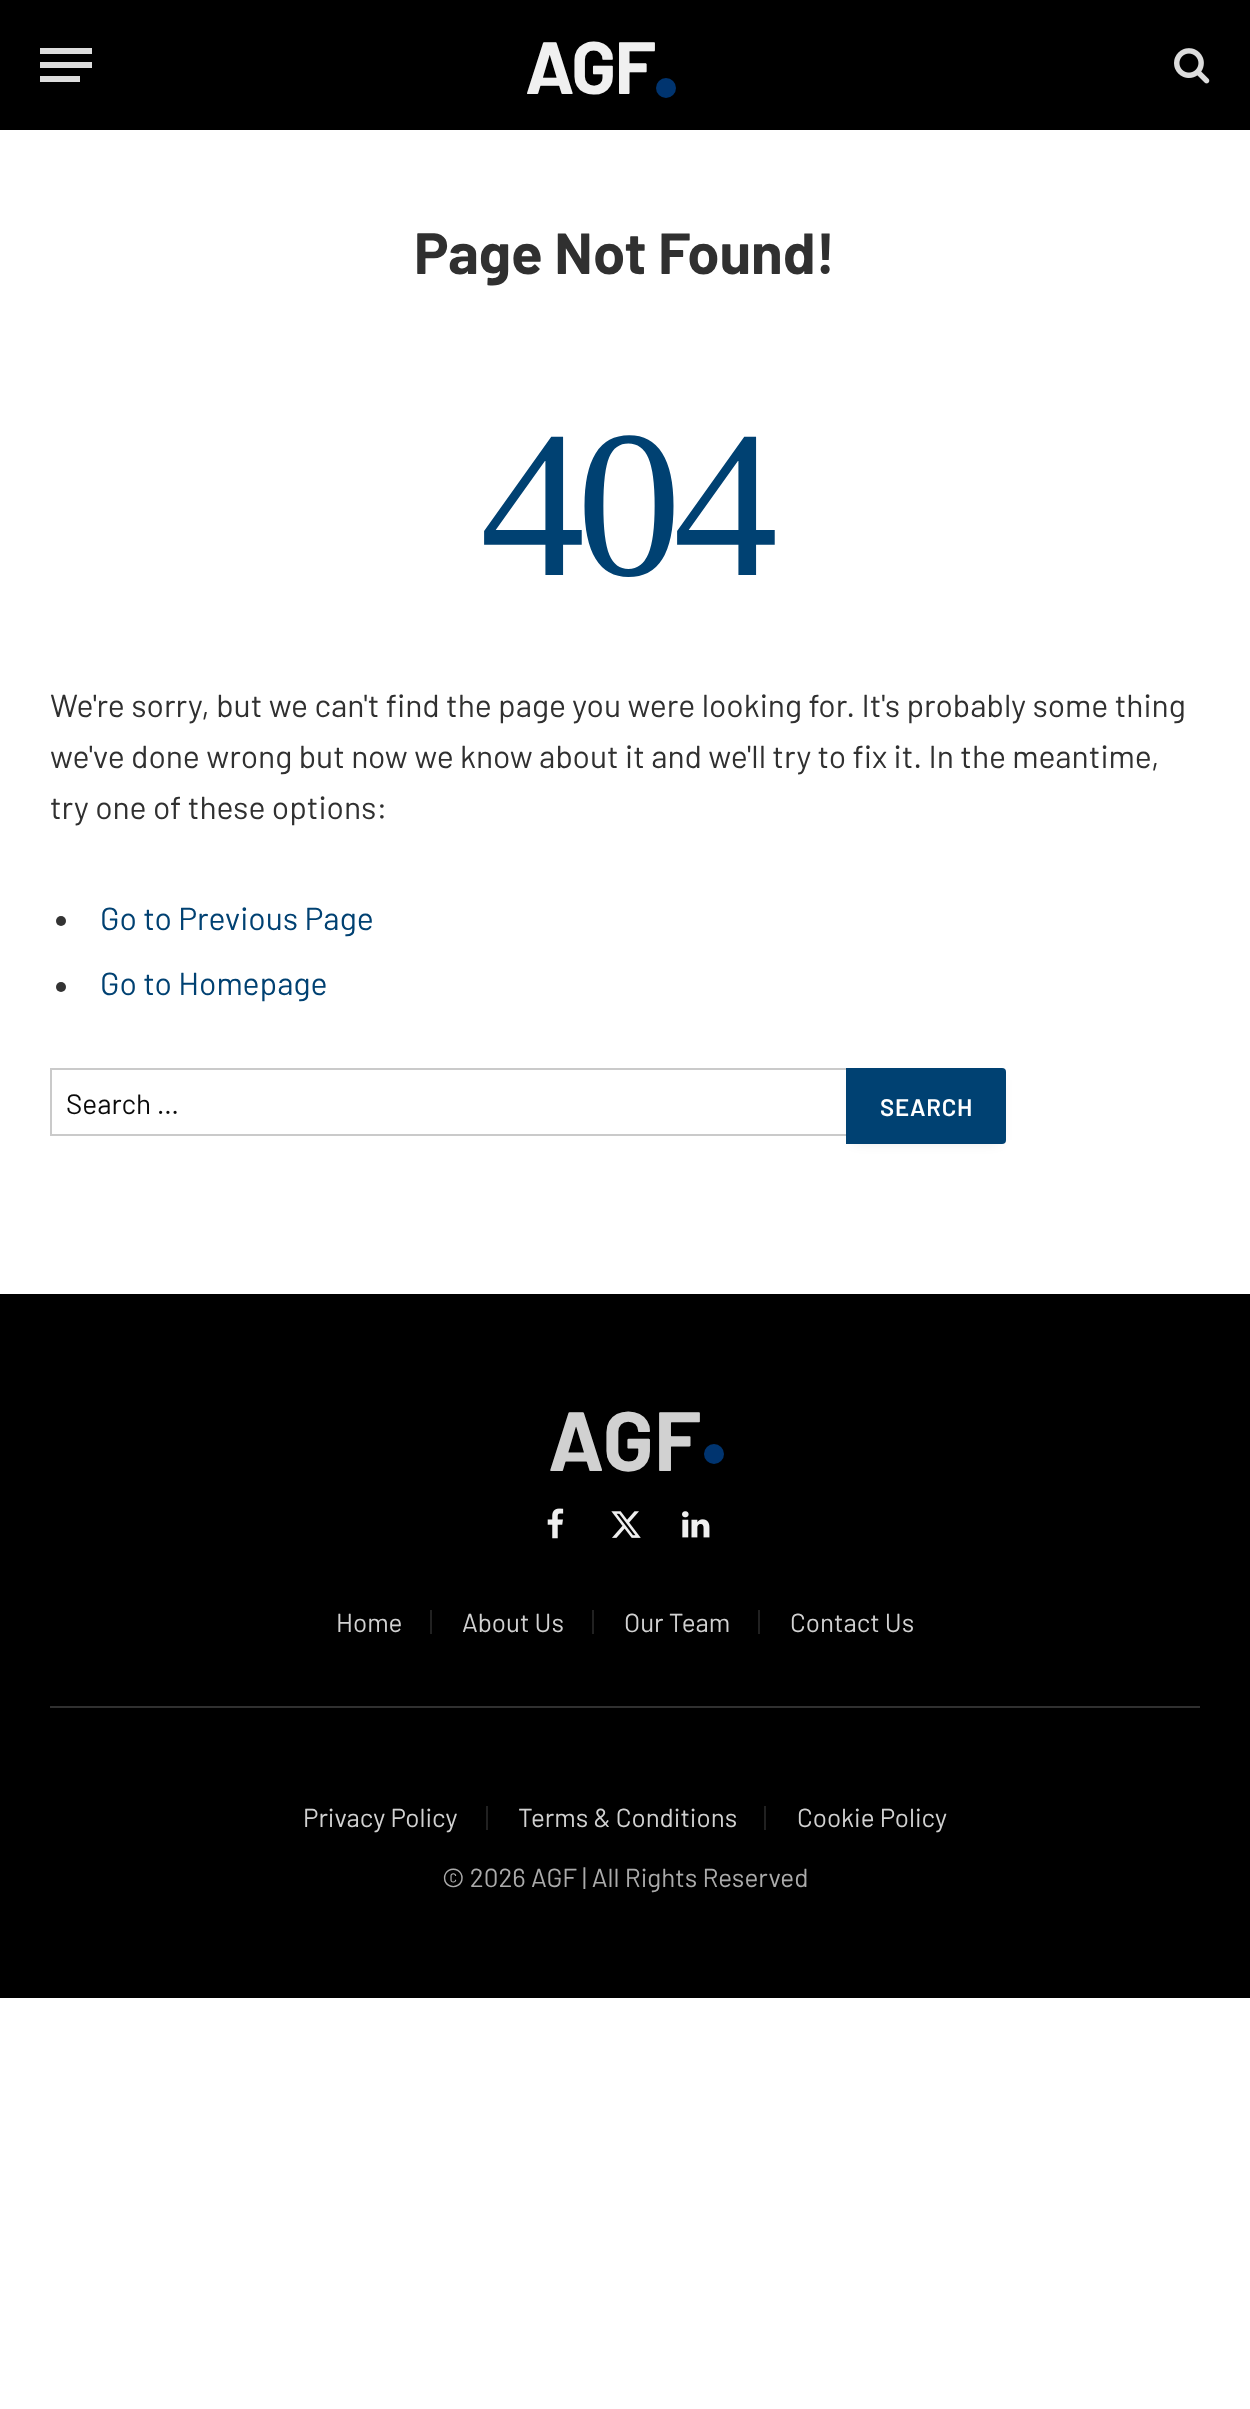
async function draw(canvas) {
  canvas.width = 1250;
  canvas.height = 2409;
  const ctx = canvas.getContext('2d');
  ctx.miterLimit = 4;
  ctx.fontKerning = 'normal';
  function label(s, x, y, font, color) {
    ctx.font = font;
    ctx.fillStyle = color;
    ctx.fillText(s, x, y);
  }
  function rect(x, y, w, h, color) {
    ctx.fillStyle = color;
    ctx.fillRect(x, y, w, h);
  }
  async function image(src, x, y, w, h) {
    const img = new Image();
    img.src = src;
    await img.decode();
    ctx.drawImage(img, x, y, w, h);
  }

  rect(0, 0, 1250, 2409, '#fff');
  rect(0, 0, 1250, 130, '#000');
  rect(40, 76, 40, 6, '#ddd');
  rect(40, 48, 52, 6, '#ddd');
  rect(40, 62, 52, 6, '#ddd');
  ctx.letterSpacing = '-2px';
  label('AGF', 525, 94, 'bold 74px Barlow', '#f0f0f0');
  ctx.fillStyle = '#00346f';
  ctx.beginPath();
  ctx.arc(666, 88, 10, 0, 2 * Math.PI);
  ctx.fill();
  await image('assets/img1.png', 1174, 48, 36, 36);
  ctx.letterSpacing = '0px';
  label('Page Not Found!', 414, 274, 'bold 58px Barlow', '#303030');
  ctx.letterSpacing = '-8.5px';
  label('404', 480, 575, '210px Liberation Serif', '#004172');
  ctx.letterSpacing = '0px';
  label('We\'re sorry, but we can\'t find the page you were looking for. It\'s probably some thing', 50, 717, '31.9px Barlow', '#303030');
  label('we\'ve done wrong but now we know about it and we\'ll try to fix it. In the meantime,', 50, 768, '31.9px Barlow', '#303030');
  label('try one of these options:', 50, 819, '31.9px Barlow', '#303030');
  ctx.fillStyle = '#333';
  ctx.beginPath();
  ctx.arc(61, 921, 5, 0, 2 * Math.PI);
  ctx.fill();
  label('Go to Previous Page', 100, 930, '31.9px Barlow', '#004172');
  ctx.fillStyle = '#333';
  ctx.beginPath();
  ctx.arc(61, 987, 5, 0, 2 * Math.PI);
  ctx.fill();
  label('Go to Homepage', 100, 995, '31.9px Barlow', '#004172');
  ctx.strokeStyle = '#cacaca';
  ctx.lineWidth = 2;
  ctx.strokeRect(51, 1069, 798, 66);
  label('Search …', 66, 1114, '28px Barlow', '#0a0a0a');
  ctx.fillStyle = '#00000029';
  ctx.filter = 'blur(7px)';
  ctx.beginPath();
  ctx.rect(854, 1080, 144, 60);
  ctx.fill();
  ctx.filter = 'none';
  ctx.fillStyle = '#004172';
  ctx.beginPath();
  ctx.roundRect(846, 1068, 160, 76, [0, 4, 4, 0]);
  ctx.fill();
  ctx.letterSpacing = '0.75px';
  label('SEARCH', 880, 1116, '600 24px Barlow', '#fff');
  rect(0, 1294, 1250, 704, '#000');
  ctx.letterSpacing = '0px';
  label('AGF', 548, 1471, 'bold 84px Barlow', '#d1d1d1');
  ctx.fillStyle = '#00346f';
  ctx.beginPath();
  ctx.arc(714, 1454, 10, 0, 2 * Math.PI);
  ctx.fill();
  await image('assets/img2.png', 547, 1508, 17, 31);
  await image('assets/img3.png', 611, 1511, 30, 27);
  await image('assets/img4.png', 682, 1511, 28, 27);
  label('Home', 336, 1632, '26px Barlow', '#d1d1d1');
  rect(430, 1610, 2, 24, '#212121');
  label('About Us', 462, 1632, '26px Barlow', '#d1d1d1');
  rect(592, 1610, 2, 24, '#212121');
  label('Our Team', 624, 1632, '26px Barlow', '#d1d1d1');
  rect(758, 1610, 2, 24, '#212121');
  label('Contact Us', 790, 1632, '26px Barlow', '#d1d1d1');
  rect(50, 1706, 1150, 2, '#303030');
  label('Privacy Policy', 303, 1827, '26px Barlow', '#d1d1d1');
  rect(486, 1806, 2, 24, '#212121');
  label('Terms & Conditions', 518, 1827, '26px Barlow', '#d1d1d1');
  rect(764, 1806, 2, 24, '#212121');
  label('Cookie Policy', 797, 1827, '26px Barlow', '#d1d1d1');
  label('© 2026 AGF | All Rights Reserved', 442, 1887, '26px Barlow', '#ababab');
}

draw(document.querySelector('canvas'));
